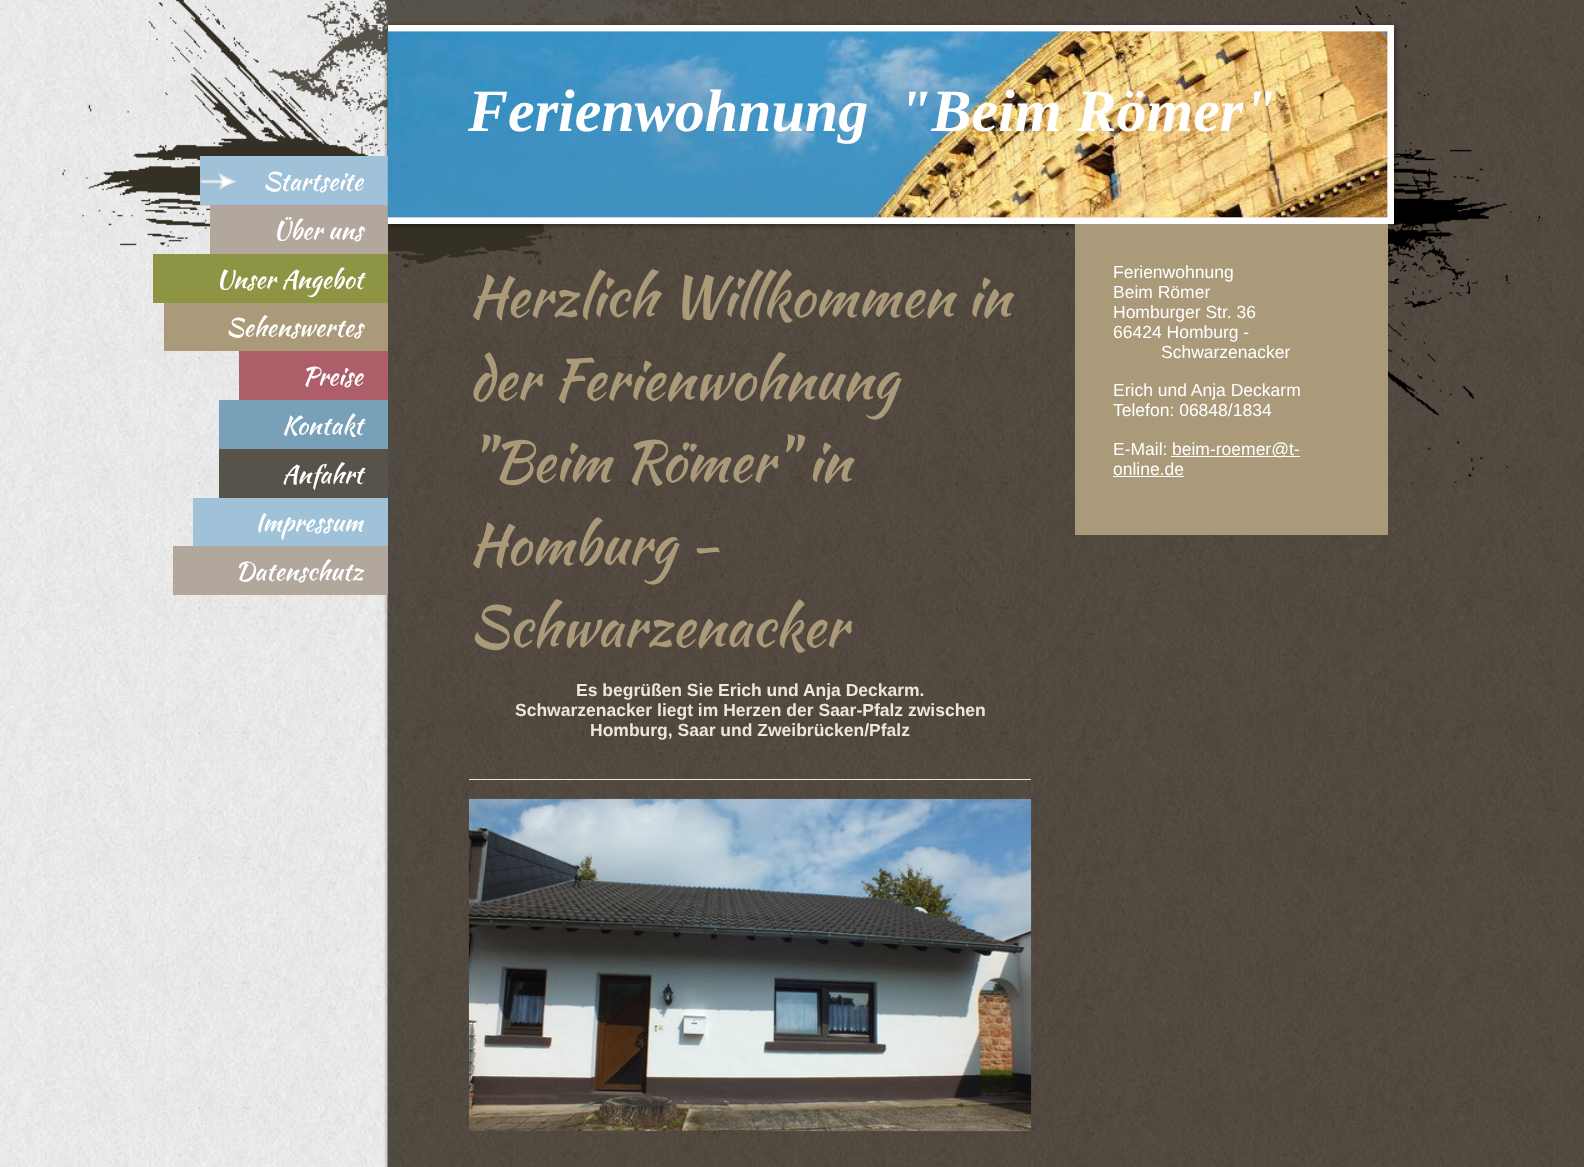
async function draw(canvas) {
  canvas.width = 1584;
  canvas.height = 1167;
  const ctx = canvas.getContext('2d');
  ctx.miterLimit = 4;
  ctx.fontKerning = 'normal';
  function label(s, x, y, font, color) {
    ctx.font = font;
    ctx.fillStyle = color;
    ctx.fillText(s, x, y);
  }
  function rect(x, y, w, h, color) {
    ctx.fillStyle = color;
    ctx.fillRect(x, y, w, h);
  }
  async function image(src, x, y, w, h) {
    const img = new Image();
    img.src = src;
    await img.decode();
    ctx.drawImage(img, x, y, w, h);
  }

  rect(0, 0, 1584, 1167, '#fff');
  await image('assets/img1.png', 0, 0, 1584, 1167);
  await image('assets/img2.png', 62, 0, 1478, 483);
  ctx.fillStyle = '#00000080';
  ctx.filter = 'blur(2.5px)';
  ctx.beginPath();
  ctx.rect(389, 26, 1006, 199);
  ctx.fill();
  ctx.filter = 'none';
  rect(200, 156, 188, 49, '#9fc2d8');
  await image('assets/img3.png', 200, 171, 37, 20);
  label('Startseite', 263, 190, '25px Kaushan Script', '#fff');
  rect(210, 205, 178, 49, '#b1a79d');
  label('Über uns', 273, 239, '25px Kaushan Script', '#fff');
  rect(153, 254, 235, 49, '#8d9444');
  label('Unser Angebot', 216, 288, '25px Kaushan Script', '#fff');
  rect(164, 303, 224, 48, '#aa9a79');
  label('Sehenswertes', 226, 336, '25px Kaushan Script', '#fff');
  rect(239, 351, 149, 49, '#ae5e69');
  label('Preise', 302, 385, '25px Kaushan Script', '#fff');
  rect(219, 400, 169, 49, '#78a0b9');
  label('Kontakt', 282, 434, '25px Kaushan Script', '#fff');
  rect(219, 449, 169, 49, '#57534a');
  label('Anfahrt', 282, 483, '25px Kaushan Script', '#fff');
  rect(193, 498, 195, 48, '#9fc2d8');
  label('Impressum', 255, 531, '25px Kaushan Script', '#fff');
  rect(173, 546, 215, 49, '#b1a79d');
  label('Datenschutz', 235, 580, '25px Kaushan Script', '#fff');
  rect(388, 25, 1006, 6, '#fff');
  rect(1388, 25, 6, 199, '#fff');
  rect(388, 218, 1006, 6, '#fff');
  await image('assets/img4.png', 387, 31, 1, 125);
  rect(388, 31, 1000, 187, '#eee');
  await image('assets/img5.png', 387, 31, 1001, 187);
  label('Ferienwohnung  "Beim Römer"', 468, 131, 'italic bold 60px Liberation Serif', '#fff');
  label('Herzlich Willkommen in', 469, 316, '56.25px Kaushan Script', '#aa9a79');
  label('der Ferienwohnung', 469, 399, '56.25px Kaushan Script', '#aa9a79');
  label('"Beim Römer" in', 469, 481, '56.25px Kaushan Script', '#aa9a79');
  label('Homburg -', 469, 564, '56.25px Kaushan Script', '#aa9a79');
  label('Schwarzenacker', 469, 646, '56.25px Kaushan Script', '#aa9a79');
  label('Es begrüßen Sie Erich und Anja Deckarm.', 576, 696, 'bold 17.5px Liberation Sans', '#eee7d8');
  label('Schwarzenacker liegt im Herzen der Saar-Pfalz zwischen', 515, 716, 'bold 17.5px Liberation Sans', '#eee7d8');
  label('Homburg, Saar und Zweibrücken/Pfalz', 590, 736, 'bold 17.5px Liberation Sans', '#eee7d8');
  rect(469, 779, 562, 1, '#eee7d8');
  await image('assets/img6.png', 468, 798, 564, 334);
  rect(1075, 224, 313, 311, '#aa9a79');
  label('Ferienwohnung', 1113, 278, '17.5px Liberation Sans', '#fff');
  label('Beim Römer', 1113, 298, '17.5px Liberation Sans', '#fff');
  label('Homburger Str. 36', 1113, 318, '17.5px Liberation Sans', '#fff');
  label('66424 Homburg -', 1113, 338, '17.5px Liberation Sans', '#fff');
  label('Schwarzenacker', 1161, 358, '17.5px Liberation Sans', '#fff');
  label('Erich und Anja Deckarm', 1113, 396, '17.5px Liberation Sans', '#fff');
  label('Telefon: 06848/1834', 1113, 416, '17.5px Liberation Sans', '#fff');
  label('E-Mail:', 1113, 455, '17.5px Liberation Sans', '#fff');
  rect(1171, 456, 129, 1, '#fff');
  label('beim-roemer@t-', 1172, 455, '17.5px Liberation Sans', '#fff');
  label('online.de', 1113, 475, '17.5px Liberation Sans', '#fff');
  rect(1113, 476, 71, 1, '#fff');
}

draw(document.querySelector('canvas'));
